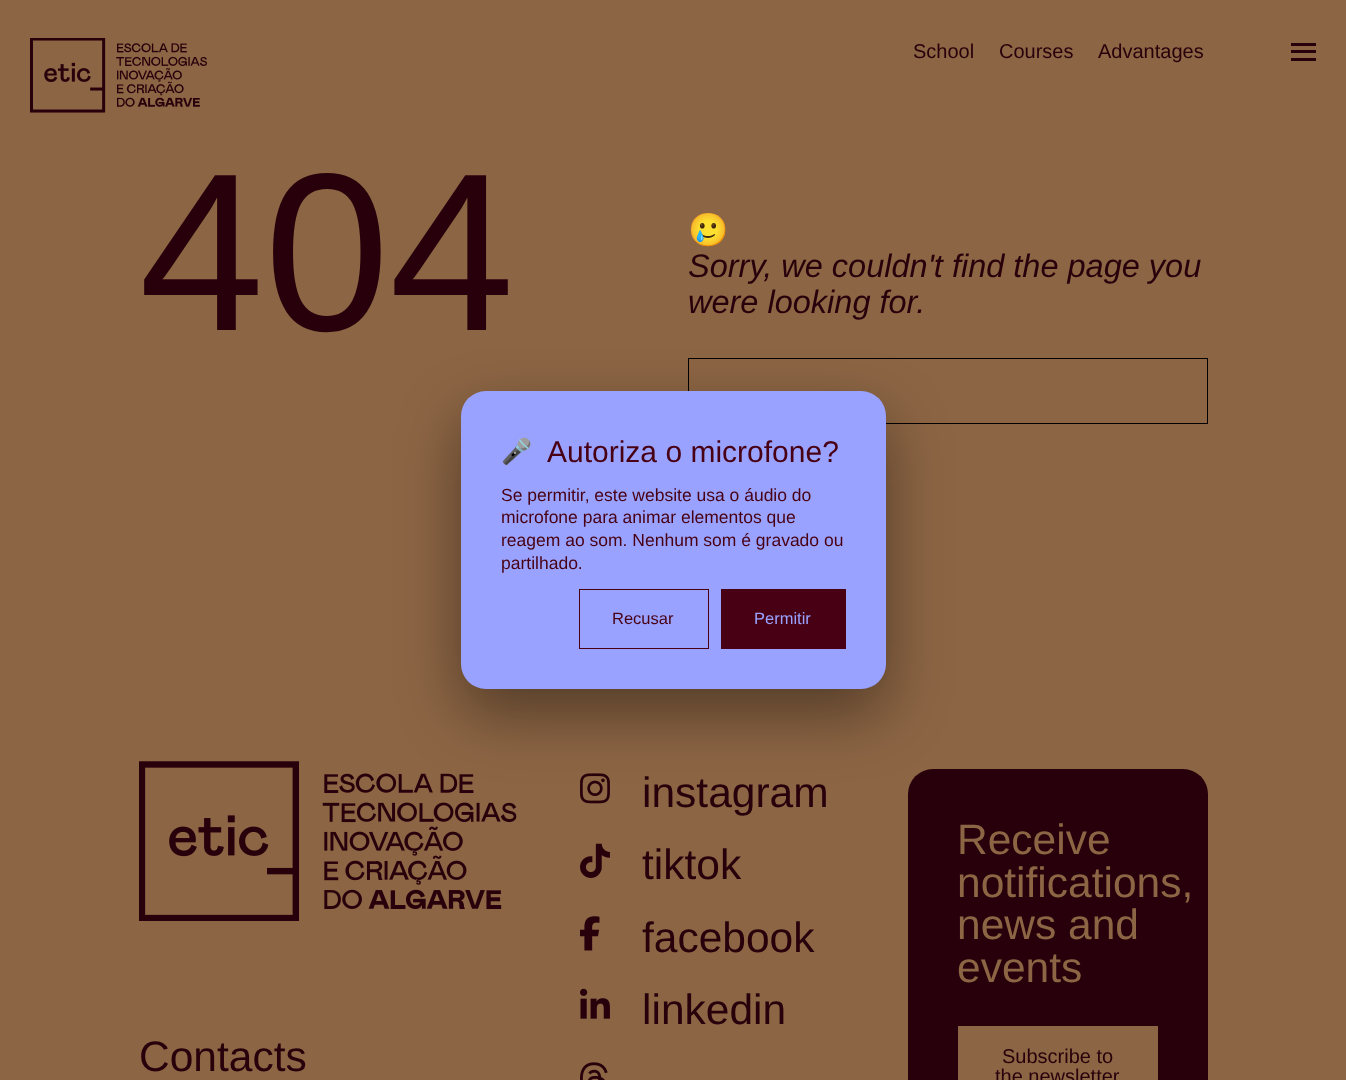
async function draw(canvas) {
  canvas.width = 1346;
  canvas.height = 1080;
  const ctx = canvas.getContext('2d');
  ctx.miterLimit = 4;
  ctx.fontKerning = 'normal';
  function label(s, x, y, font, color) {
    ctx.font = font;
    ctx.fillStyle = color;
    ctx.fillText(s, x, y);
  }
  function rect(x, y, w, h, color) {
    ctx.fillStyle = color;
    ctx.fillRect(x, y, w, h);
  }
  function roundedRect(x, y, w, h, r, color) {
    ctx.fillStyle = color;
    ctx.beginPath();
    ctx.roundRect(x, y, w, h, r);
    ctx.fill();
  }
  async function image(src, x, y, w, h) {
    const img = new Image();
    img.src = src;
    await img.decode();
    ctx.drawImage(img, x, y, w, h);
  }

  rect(0, 0, 1346, 1080, '#8c6544');
  await image('assets/img1.png', 30, 38, 177, 75);
  label('School', 913, 58, '20px Liberation Sans', '#28000b');
  label('Courses', 999, 58, '20px Liberation Sans', '#28000b');
  label('Advantages', 1098, 58, '20px Liberation Sans', '#28000b');
  rect(1291, 43, 25, 3, '#28000b');
  rect(1291, 50, 25, 3, '#28000b');
  rect(1291, 58, 25, 3, '#28000b');
  label('404', 139, 330, '225px Liberation Sans', '#28000b');
  label('🥲', 688, 241, '32.5px Noto Color Emoji', '#28000b');
  label('Sorry, we couldn\'t find the page you', 688, 277, 'italic 32.5px Liberation Sans', '#28000b');
  label('were looking for.', 688, 313, 'italic 32.5px Liberation Sans', '#28000b');
  ctx.strokeStyle = '#000';
  ctx.strokeRect(688.5, 358.5, 519, 65);
  await image('assets/img2.png', 139, 761, 378, 160);
  await image('assets/img3.png', 580, 773, 30, 31);
  label('instagram', 642, 807, '42.5px Liberation Sans', '#28000b');
  await image('assets/img4.png', 580, 843, 30, 35);
  label('tiktok', 642, 879, '42.5px Liberation Sans', '#28000b');
  await image('assets/img5.png', 580, 916, 20, 35);
  label('facebook', 642, 952, '42.5px Liberation Sans', '#28000b');
  await image('assets/img6.png', 580, 988, 30, 31);
  label('linkedin', 642, 1024, '42.5px Liberation Sans', '#28000b');
  await image('assets/img7.png', 580, 1062, 28, 18);
  roundedRect(908, 769, 300, 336, 25, '#28000b');
  label('Receive', 957, 854, '42.5px Liberation Sans', '#8c6544');
  label('notifications,', 957, 897, '42.5px Liberation Sans', '#8c6544');
  label('news and', 957, 939, '42.5px Liberation Sans', '#8c6544');
  label('events', 957, 982, '42.5px Liberation Sans', '#8c6544');
  rect(958, 1026, 200, 54, '#8c6544');
  label('Subscribe to', 1002, 1063, '20px Liberation Sans', '#28000b');
  label('the newsletter', 995, 1083, '20px Liberation Sans', '#28000b');
  label('Contacts', 139, 1071, '42.5px Liberation Sans', '#28000b');
  ctx.fillStyle = '#00000066';
  ctx.filter = 'blur(31px)';
  ctx.beginPath();
  ctx.roundRect(461, 416, 425, 298, 25);
  ctx.fill();
  ctx.filter = 'none';
  roundedRect(461, 391, 425, 298, 25, '#99a3ff');
  label('🎤', 501, 460, '25px Noto Color Emoji', '#480014');
  label('Autoriza o microfone?', 547, 462, '30px Liberation Sans', '#480014');
  label('Se permitir, este website usa o áudio do', 501, 501, '17.5px Liberation Sans', '#480014');
  label('microfone para animar elementos que', 501, 523, '17.5px Liberation Sans', '#480014');
  label('reagem ao som. Nenhum som é gravado ou', 501, 546, '17.5px Liberation Sans', '#480014');
  label('partilhado.', 501, 569, '17.5px Liberation Sans', '#480014');
  ctx.strokeStyle = '#480014';
  ctx.strokeRect(579.5, 589.5, 129, 59);
  label('Recusar', 612, 624, '16.5px Liberation Sans', '#480014');
  rect(721, 589, 125, 60, '#480014');
  label('Permitir', 754, 624, '16.5px Liberation Sans', '#99a3ff');
}

draw(document.querySelector('canvas'));
